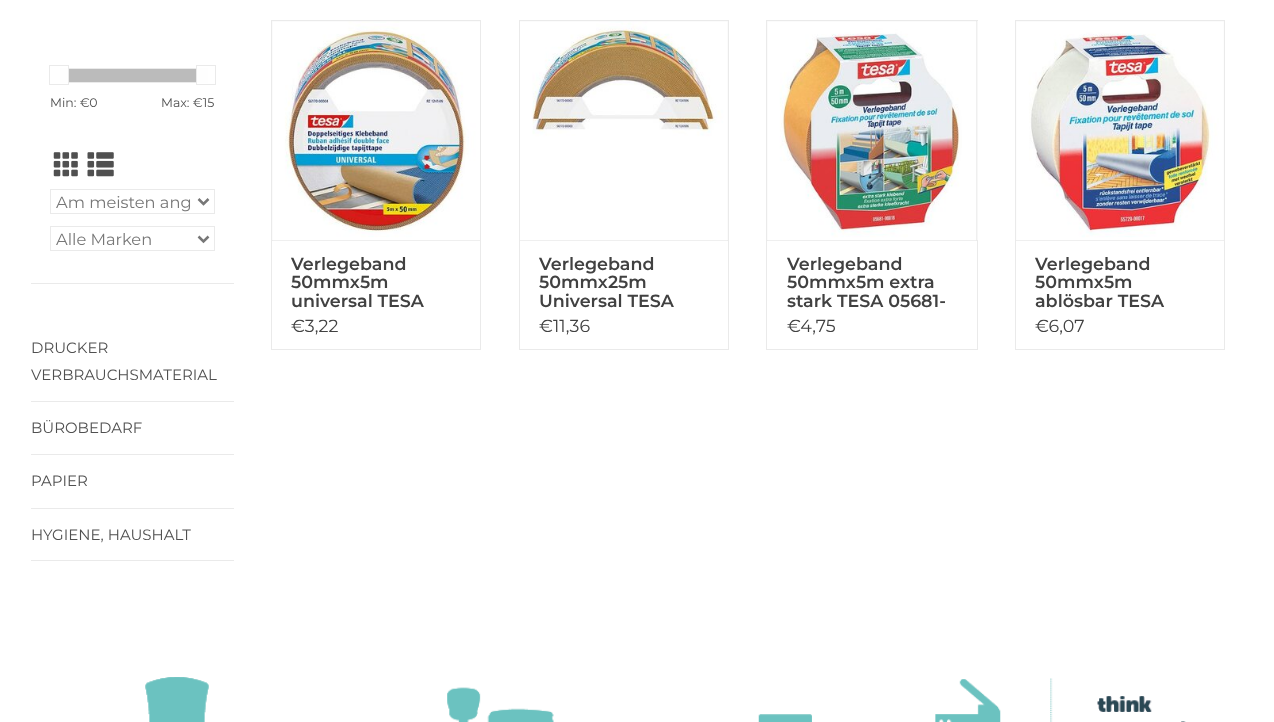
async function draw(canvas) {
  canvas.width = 1274;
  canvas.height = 722;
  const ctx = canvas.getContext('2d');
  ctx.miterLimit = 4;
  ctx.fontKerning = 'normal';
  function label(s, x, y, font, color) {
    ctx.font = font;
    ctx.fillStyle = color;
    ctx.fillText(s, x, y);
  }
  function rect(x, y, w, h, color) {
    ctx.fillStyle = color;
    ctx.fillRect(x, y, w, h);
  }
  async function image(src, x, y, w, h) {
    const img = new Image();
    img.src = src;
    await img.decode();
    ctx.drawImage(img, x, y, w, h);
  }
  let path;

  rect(0, 0, 1274, 722, '#fff');
  await image('assets/img1.png', 145, 677, 1041, 45);
  rect(31, 283, 203, 1, '#eaeaea');
  rect(69, 69, 127, 13, '#bbb');
  ctx.strokeStyle = '#eaeaea';
  ctx.strokeRect(60.5, 68.5, 147, 14);
  rect(60, 68, 8, 15, '#fefefe');
  ctx.strokeRect(49.5, 65.5, 19, 19);
  rect(197, 68, 11, 15, '#fefefe');
  ctx.strokeRect(196.5, 65.5, 19, 19);
  label('Min: €0', 50, 107, '12.5px Montserrat', '#505050');
  label('Max: €15', 161, 107, '12.5px Montserrat', '#505050');
  await image('assets/img2.png', 53, 152, 25, 25);
  await image('assets/img3.png', 87, 152, 27, 25);
  ctx.strokeRect(50.5, 189.5, 164, 24);
  path = new Path2D('M198.5 199L203.5 204L208.5 199');
  ctx.strokeStyle = '#777';
  ctx.lineWidth = 2.5;
  ctx.stroke(path);
  label('Am meisten ang', 56, 208, '16.25px Montserrat', '#777');
  ctx.strokeStyle = '#eaeaea';
  ctx.lineWidth = 1;
  ctx.strokeRect(50.5, 226.5, 164, 24);
  path = new Path2D('M198.5 236.5L203.5 241.5L208.5 236.5');
  ctx.strokeStyle = '#777';
  ctx.lineWidth = 2.5;
  ctx.stroke(path);
  label('Alle Marken', 56, 245, '16.25px Montserrat', '#777');
  rect(31, 401, 203, 1, '#eaeaea');
  label('DRUCKER', 31, 353, '15px Montserrat', '#505050');
  label('VERBRAUCHSMATERIAL', 31, 380, '15px Montserrat', '#505050');
  rect(31, 454, 203, 1, '#eaeaea');
  label('BÜROBEDARF', 31, 433, '15px Montserrat', '#505050');
  rect(31, 508, 203, 1, '#eaeaea');
  label('PAPIER', 31, 486, '15px Montserrat', '#505050');
  rect(31, 560, 203, 1, '#eaeaea');
  label('HYGIENE, HAUSHALT', 31, 540, '15px Montserrat', '#505050');
  rect(272, 21, 208, 219, '#f7f7f7');
  rect(271, 20, 210, 1, '#eaeaea');
  rect(480, 20, 1, 220, '#eaeaea');
  rect(271, 20, 1, 220, '#eaeaea');
  ctx.strokeStyle = '#eaeaea';
  ctx.lineWidth = 1;
  ctx.strokeRect(271.5, 240.5, 209, 109);
  await image('assets/img4.png', 272, 21, 208, 220);
  label('Verlegeband', 291, 270, '600 17.5px Montserrat', '#414141');
  label('50mmx5m', 291, 288, '600 17.5px Montserrat', '#414141');
  label('universal TESA', 291, 307, '600 17.5px Montserrat', '#414141');
  label('€3,22', 291, 332, '17.5px Montserrat', '#414141');
  rect(520, 21, 208, 219, '#f7f7f7');
  rect(519, 20, 210, 1, '#eaeaea');
  rect(728, 20, 1, 220, '#eaeaea');
  rect(519, 20, 1, 220, '#eaeaea');
  ctx.strokeRect(519.5, 240.5, 209, 109);
  await image('assets/img5.png', 520, 21, 208, 220);
  label('Verlegeband', 539, 270, '600 17.5px Montserrat', '#414141');
  label('50mmx25m', 539, 288, '600 17.5px Montserrat', '#414141');
  label('Universal TESA', 539, 307, '600 17.5px Montserrat', '#414141');
  label('€11,36', 539, 332, '17.5px Montserrat', '#414141');
  rect(767, 21, 211, 219, '#f7f7f7');
  rect(766, 20, 212, 1, '#eaeaea');
  rect(976, 20, 1, 220, '#eaeaea');
  rect(766, 20, 1, 220, '#eaeaea');
  ctx.strokeRect(766.5, 240.5, 211, 109);
  await image('assets/img6.png', 767, 21, 210, 220);
  label('Verlegeband', 787, 270, '600 17.5px Montserrat', '#414141');
  label('50mmx5m extra', 787, 288, '600 17.5px Montserrat', '#414141');
  label('stark TESA 05681-', 787, 307, '600 17.5px Montserrat', '#414141');
  label('€4,75', 787, 332, '17.5px Montserrat', '#414141');
  rect(1016, 21, 208, 219, '#f7f7f7');
  rect(1015, 20, 210, 1, '#eaeaea');
  rect(1224, 20, 1, 220, '#eaeaea');
  rect(1015, 20, 1, 220, '#eaeaea');
  ctx.strokeRect(1015.5, 240.5, 209, 109);
  await image('assets/img7.png', 1016, 21, 208, 220);
  label('Verlegeband', 1035, 270, '600 17.5px Montserrat', '#414141');
  label('50mmx5m', 1035, 288, '600 17.5px Montserrat', '#414141');
  label('ablösbar TESA', 1035, 307, '600 17.5px Montserrat', '#414141');
  label('€6,07', 1035, 332, '17.5px Montserrat', '#414141');
}

draw(document.querySelector('canvas'));
